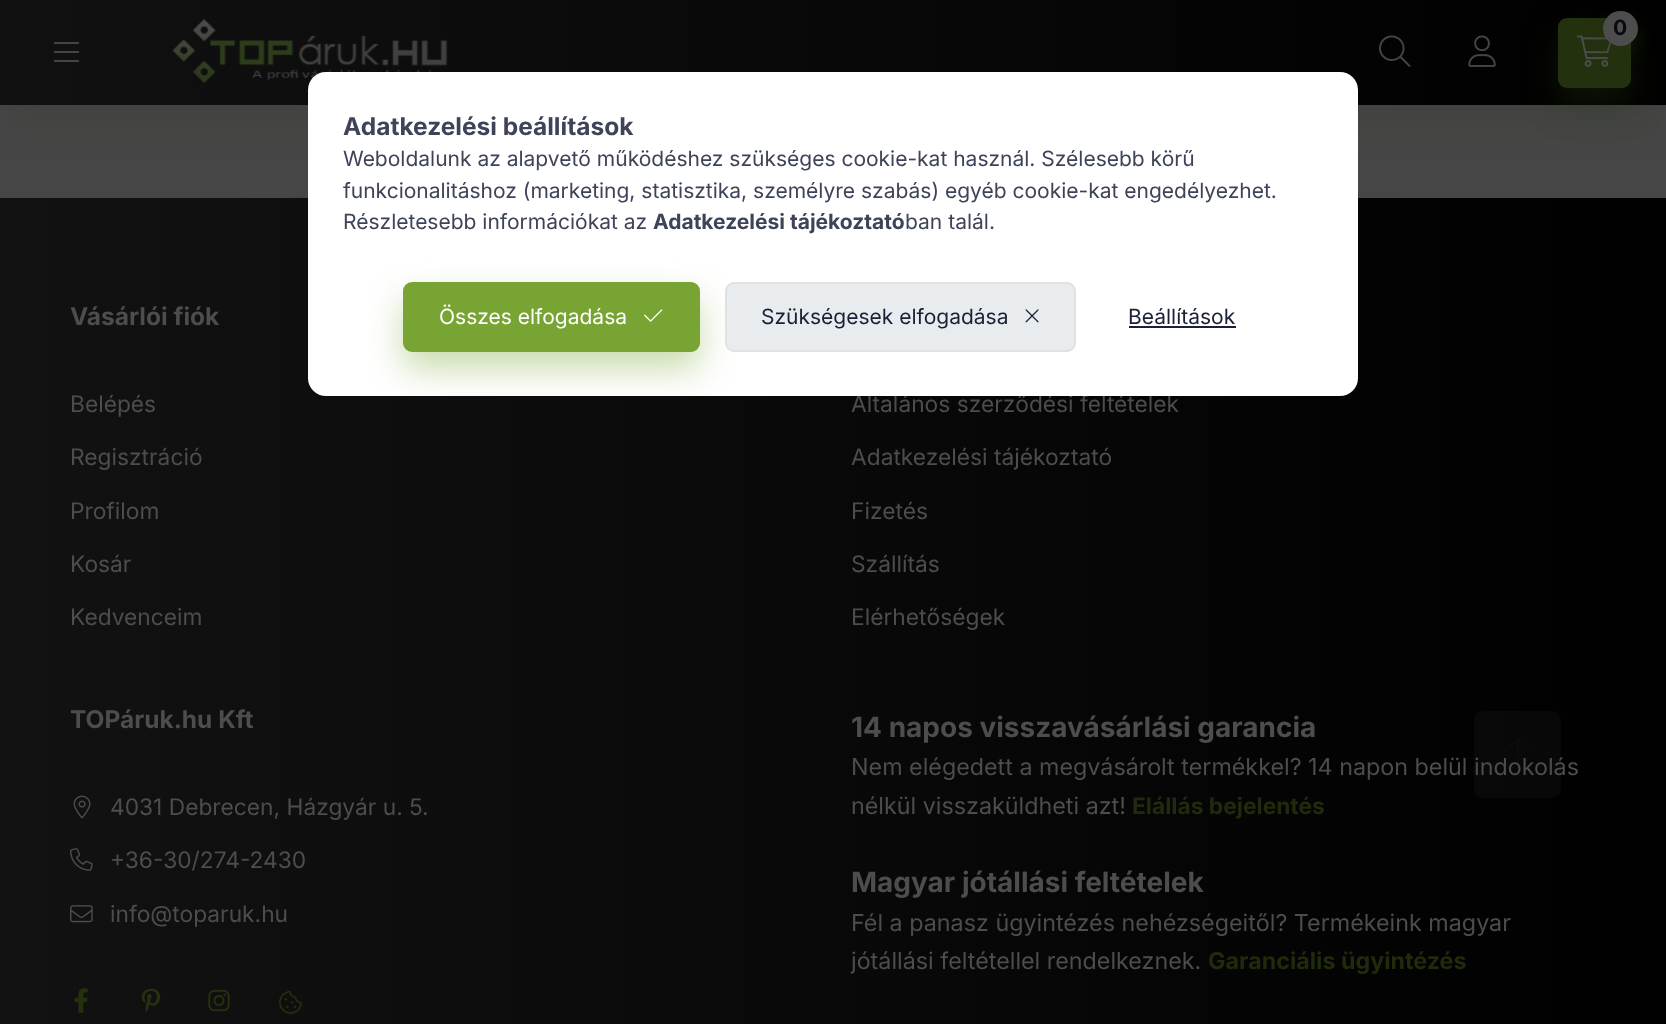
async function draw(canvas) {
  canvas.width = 1666;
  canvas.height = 1024;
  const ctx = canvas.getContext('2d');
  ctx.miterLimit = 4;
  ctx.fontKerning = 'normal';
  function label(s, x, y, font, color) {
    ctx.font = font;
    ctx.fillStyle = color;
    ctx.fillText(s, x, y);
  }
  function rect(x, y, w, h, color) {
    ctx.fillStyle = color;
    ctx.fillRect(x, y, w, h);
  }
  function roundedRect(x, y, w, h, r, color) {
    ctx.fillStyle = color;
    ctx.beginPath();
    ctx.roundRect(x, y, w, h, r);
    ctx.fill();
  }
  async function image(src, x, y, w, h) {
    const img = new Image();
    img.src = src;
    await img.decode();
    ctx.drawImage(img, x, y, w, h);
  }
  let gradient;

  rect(0, 0, 1666, 1024, '#464646');
  ctx.fillStyle = '#24310f33';
  ctx.filter = 'blur(26px)';
  ctx.beginPath();
  ctx.rect(0, 0, 1666, 105);
  ctx.fill();
  ctx.filter = 'none';
  gradient = ctx.createLinearGradient(0, 513, 1666, 513);
  gradient.addColorStop(0, '#121111');
  gradient.addColorStop(1, '#000');
  ctx.fillStyle = gradient;
  ctx.fillRect(0, 0, 1666, 105);
  rect(54, 42, 25, 2, '#444');
  rect(54, 51, 25, 2, '#444');
  rect(54, 60, 25, 2, '#444');
  await image('assets/img1.png', 172, 18, 276, 66);
  ctx.fillStyle = '#24310f66';
  ctx.filter = 'blur(17.5px)';
  ctx.beginPath();
  ctx.roundRect(1558, 35, 73, 70, 9);
  ctx.fill();
  ctx.filter = 'none';
  roundedRect(1558, 18, 73, 70, 9, '#24310f');
  await image('assets/img2.png', 1576, 35, 36, 32);
  ctx.fillStyle = '#24310f66';
  ctx.filter = 'blur(9px)';
  ctx.beginPath();
  ctx.roundRect(1603, 19, 35, 35, 17.5);
  ctx.fill();
  ctx.filter = 'none';
  ctx.fillStyle = '#4d4d4d';
  ctx.beginPath();
  ctx.arc(1620.5, 28.5, 17.5, 0, 2 * Math.PI);
  ctx.fill();
  label('0', 1613, 35, 'bold 21px Inter', '#080a10');
  await image('assets/img3.png', 1379, 35, 32, 32);
  await image('assets/img4.png', 1468, 35, 28, 32);
  gradient = ctx.createLinearGradient(0, 513, 1666, 513);
  gradient.addColorStop(0, '#121212');
  gradient.addColorStop(1, '#000');
  ctx.fillStyle = gradient;
  ctx.fillRect(0, 198, 1666, 826);
  label('Vásárlói fiók', 70, 325, 'bold 24.5px Inter', '#4d4d4d');
  label('Belépés', 70, 412, '22.75px Inter', '#4d4d4d');
  label('Regisztráció', 70, 465, '22.75px Inter', '#4d4d4d');
  label('Profilom', 70, 519, '22.75px Inter', '#4d4d4d');
  label('Kosár', 70, 572, '22.75px Inter', '#4d4d4d');
  label('Kedvenceim', 70, 625, '22.75px Inter', '#4d4d4d');
  label('Általános szerződési feltételek', 851, 412, '22.75px Inter', '#4d4d4d');
  label('Adatkezelési tájékoztató', 851, 465, '22.75px Inter', '#4d4d4d');
  label('Fizetés', 851, 519, '22.75px Inter', '#4d4d4d');
  label('Szállítás', 851, 572, '22.75px Inter', '#4d4d4d');
  label('Elérhetőségek', 851, 625, '22.75px Inter', '#4d4d4d');
  label('TOPáruk.hu Kft', 70, 728, 'bold 24.5px Inter', '#4d4d4d');
  await image('assets/img5.png', 73, 795, 18, 24);
  label('4031 Debrecen, Házgyár u. 5.', 110, 815, '22.75px Inter', '#4d4d4d');
  await image('assets/img6.png', 70, 848, 23, 23);
  label('+36-30/274-2430', 110, 868, '22.75px Inter', '#4d4d4d');
  await image('assets/img7.png', 70, 905, 23, 18);
  label('info@toparuk.hu', 110, 922, '22.75px Inter', '#4d4d4d');
  await image('assets/img8.png', 74, 988, 14, 25);
  await image('assets/img9.png', 141, 988, 20, 25);
  await image('assets/img10.png', 208, 989, 22, 23);
  await image('assets/img11.png', 279, 990, 23, 24);
  label('14 napos visszavásárlási garancia', 851, 737, 'bold 28px Inter', '#4d4d4d');
  label('Nem elégedett a megvásárolt termékkel? 14 napon belül indokolás', 851, 775, '23.3px Inter', '#4d4d4d');
  label('nélkül visszaküldheti azt!', 851, 814, '23.3px Inter', '#4d4d4d');
  label('Elállás bejelentés', 1132, 814, 'bold 22.75px Inter', '#202b0b');
  label('Magyar jótállási feltételek', 851, 892, 'bold 28px Inter', '#4d4d4d');
  label('Fél a panasz ügyintézés nehézségeitől? Termékeink magyar', 851, 931, '23.3px Inter', '#4d4d4d');
  label('jótállási feltétellel rendelkeznek.', 851, 969, '23.3px Inter', '#4d4d4d');
  label('Garanciális ügyintézés', 1208, 969, 'bold 23.3px Inter', '#202b0b');
  roundedRect(308, 72, 1050, 324, 18, '#fff');
  label('Adatkezelési beállítások', 343, 135, 'bold 24.5px Inter', '#3e4359');
  label('Weboldalunk az alapvető működéshez szükséges cookie-kat használ. Szélesebb körű', 343, 166, '21px Inter', '#3e4359');
  label('funkcionalitáshoz (marketing, statisztika, személyre szabás) egyéb cookie-kat engedélyezhet.', 343, 198, '21px Inter', '#3e4359');
  label('Részletesebb információkat az', 343, 229, '21px Inter', '#3e4359');
  label('Adatkezelési tájékoztató', 653, 229, 'bold 21px Inter', '#3e4359');
  label('ban talál.', 905, 229, '21px Inter', '#3e4359');
  ctx.save();
  ctx.beginPath();
  ctx.roundRect(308, 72, 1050, 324, 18);
  ctx.clip();
  ctx.fillStyle = '#78a43366';
  ctx.filter = 'blur(17.5px)';
  ctx.beginPath();
  ctx.roundRect(403, 299, 297, 70, 9);
  ctx.fill();
  ctx.filter = 'none';
  ctx.restore();
  ctx.fillStyle = '#78a433';
  ctx.beginPath();
  ctx.roundRect(404, 283, 295, 68, 8);
  ctx.fill();
  ctx.strokeStyle = '#78a433';
  ctx.lineWidth = 2;
  ctx.stroke();
  label('Összes elfogadása', 439, 324, '21px Inter', '#fff');
  await image('assets/img12.png', 644, 309, 19, 13);
  ctx.fillStyle = '#e8ecee';
  ctx.beginPath();
  ctx.roundRect(726, 283, 349, 68, 8);
  ctx.fill();
  ctx.strokeStyle = '#e1e1e1';
  ctx.stroke();
  label('Szükségesek elfogadása', 761, 324, '21px Inter', '#1b2036');
  await image('assets/img13.png', 1025, 309, 14, 14);
  label('Beállítások', 1128, 324, '21px Inter', '#1b2036');
  rect(1129, 326, 107, 2, '#1b2036');
  roundedRect(1474, 711, 87, 87, 9, '#4d4d4d1a');
  await image('assets/img14.png', 1505, 738, 26, 31);
}

draw(document.querySelector('canvas'));
